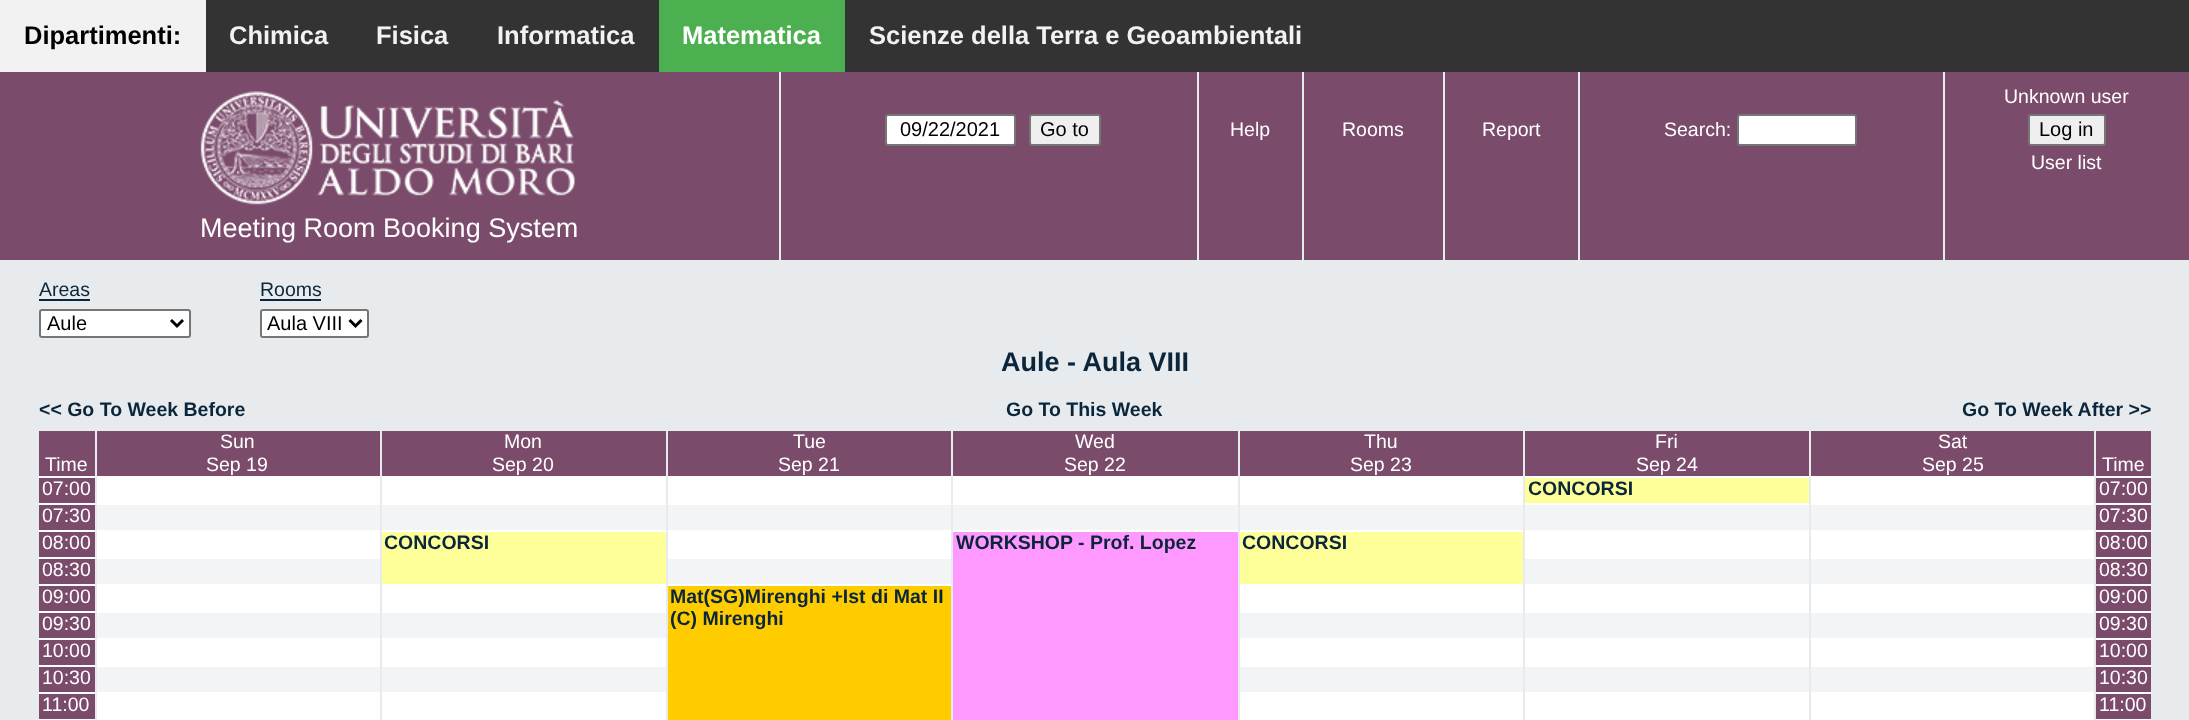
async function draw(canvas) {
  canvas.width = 2189;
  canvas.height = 720;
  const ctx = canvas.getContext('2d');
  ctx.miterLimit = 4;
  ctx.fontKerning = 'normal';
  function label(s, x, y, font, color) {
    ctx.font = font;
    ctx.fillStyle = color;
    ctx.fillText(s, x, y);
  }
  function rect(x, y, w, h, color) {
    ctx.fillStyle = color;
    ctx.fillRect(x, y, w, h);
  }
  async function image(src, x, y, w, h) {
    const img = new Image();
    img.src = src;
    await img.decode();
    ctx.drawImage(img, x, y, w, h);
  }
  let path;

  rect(0, 0, 2189, 720, '#e7ebee');
  rect(206, 0, 1983, 72, '#333');
  rect(0, 0, 206, 72, '#f2f2f2');
  label('Dipartimenti:', 24, 44, 'bold 25.5px Liberation Sans', '#000');
  label('Chimica', 229, 44, 'bold 25.5px Liberation Sans', '#f2f2f2');
  label('Fisica', 376, 44, 'bold 25.5px Liberation Sans', '#f2f2f2');
  label('Informatica', 497, 44, 'bold 25.5px Liberation Sans', '#f2f2f2');
  rect(659, 0, 186, 72, '#4caf50');
  label('Matematica', 682, 44, 'bold 25.5px Liberation Sans', '#fff');
  label('Scienze della Terra e Geoambientali', 869, 44, 'bold 25.5px Liberation Sans', '#f2f2f2');
  rect(0, 72, 2189, 188, '#7b4b6b');
  rect(779, 72, 2, 188, '#e7ebee');
  ctx.fillStyle = '#fff';
  ctx.beginPath();
  ctx.roundRect(886, 115, 129, 30, 2);
  ctx.fill();
  ctx.strokeStyle = '#767676';
  ctx.lineWidth = 2;
  ctx.stroke();
  label('09/22/2021', 900, 136, '20px Liberation Sans', '#000');
  ctx.fillStyle = '#efefef';
  ctx.beginPath();
  ctx.roundRect(1030, 115, 70, 30, 2);
  ctx.fill();
  ctx.stroke();
  label('Go to', 1040, 136, '20px Liberation Sans', '#000');
  rect(1197, 72, 2, 188, '#e7ebee');
  label('Help', 1230, 136, '19.5px Liberation Sans', '#fff');
  rect(1302, 72, 2, 188, '#e7ebee');
  label('Rooms', 1342, 136, '19.5px Liberation Sans', '#fff');
  rect(1443, 72, 2, 188, '#e7ebee');
  label('Report', 1482, 136, '19.5px Liberation Sans', '#fff');
  rect(1578, 72, 2, 188, '#e7ebee');
  label('Search:', 1664, 136, '19.5px Liberation Sans', '#fff');
  ctx.beginPath();
  ctx.roundRect(1738, 115, 118, 30, 2);
  ctx.fill();
  ctx.stroke();
  rect(1943, 72, 2, 188, '#e7ebee');
  label('Unknown user', 2004, 103, '19.5px Liberation Sans', '#fff');
  ctx.fillStyle = '#efefef';
  ctx.beginPath();
  ctx.roundRect(2029, 115, 76, 30, 2);
  ctx.fill();
  ctx.stroke();
  label('Log in', 2039, 136, '20px Liberation Sans', '#000');
  label('User list', 2031, 169, '19.5px Liberation Sans', '#fff');
  await image('assets/img1.png', 200, 91, 375, 114);
  label('Meeting Room Booking System', 200, 237, '27px Liberation Sans', '#fff');
  label('Areas', 39, 296, '19.5px Liberation Sans', '#0b263b');
  rect(39, 299, 51, 2, '#0b263b');
  ctx.fillStyle = '#fff';
  ctx.beginPath();
  ctx.roundRect(40, 310, 150, 27, 2);
  ctx.fill();
  ctx.stroke();
  path = new Path2D('M171 320L177 326L183 320');
  ctx.strokeStyle = '#000';
  ctx.lineWidth = 3;
  ctx.stroke(path);
  label('Aule', 47, 330, '20px Liberation Sans', '#000');
  label('Rooms', 260, 296, '19.5px Liberation Sans', '#0b263b');
  rect(260, 299, 61, 2, '#0b263b');
  ctx.fillStyle = '#fff';
  ctx.beginPath();
  ctx.roundRect(261, 310, 107, 27, 2);
  ctx.fill();
  ctx.strokeStyle = '#767676';
  ctx.lineWidth = 2;
  ctx.stroke();
  path = new Path2D('M349.5 320L355.5 326L361.5 320');
  ctx.strokeStyle = '#000';
  ctx.lineWidth = 3;
  ctx.stroke(path);
  label('Aula VIII', 267, 330, '20px Liberation Sans', '#000');
  label('Aule - Aula VIII', 1001, 371, 'bold 27px Liberation Sans', '#0b263b');
  label('<< Go To Week Before', 39, 416, 'bold 19.5px Liberation Sans', '#0b263b');
  label('Go To This Week', 1006, 416, 'bold 19.5px Liberation Sans', '#0b263b');
  label('Go To Week After >>', 1962, 416, 'bold 19.5px Liberation Sans', '#0b263b');
  rect(39, 431, 56, 45, '#7b4b6b');
  label('Time', 45, 471, '19.5px Liberation Sans', '#fff');
  rect(97, 431, 283, 45, '#7b4b6b');
  label('Sun', 220, 448, '19.5px Liberation Sans', '#fff');
  label('Sep 19', 206, 471, '19.5px Liberation Sans', '#fff');
  rect(382, 431, 284, 45, '#7b4b6b');
  label('Mon', 504, 448, '19.5px Liberation Sans', '#fff');
  label('Sep 20', 492, 471, '19.5px Liberation Sans', '#fff');
  rect(668, 431, 283, 45, '#7b4b6b');
  label('Tue', 793, 448, '19.5px Liberation Sans', '#fff');
  label('Sep 21', 778, 471, '19.5px Liberation Sans', '#fff');
  rect(953, 431, 285, 45, '#7b4b6b');
  label('Wed', 1075, 448, '19.5px Liberation Sans', '#fff');
  label('Sep 22', 1064, 471, '19.5px Liberation Sans', '#fff');
  rect(1240, 431, 283, 45, '#7b4b6b');
  label('Thu', 1364, 448, '19.5px Liberation Sans', '#fff');
  label('Sep 23', 1350, 471, '19.5px Liberation Sans', '#fff');
  rect(1525, 431, 284, 45, '#7b4b6b');
  label('Fri', 1655, 448, '19.5px Liberation Sans', '#fff');
  label('Sep 24', 1636, 471, '19.5px Liberation Sans', '#fff');
  rect(1811, 431, 283, 45, '#7b4b6b');
  label('Sat', 1938, 448, '19.5px Liberation Sans', '#fff');
  label('Sep 25', 1922, 471, '19.5px Liberation Sans', '#fff');
  rect(2096, 431, 55, 45, '#7b4b6b');
  label('Time', 2102, 471, '19.5px Liberation Sans', '#fff');
  rect(39, 478, 56, 25, '#7b4b6b');
  rect(39, 476, 56, 2, '#fff');
  label('07:00', 42, 495, '19.5px Liberation Sans', '#fff');
  rect(97, 476, 283, 27, '#fff');
  rect(382, 476, 284, 27, '#fff');
  rect(668, 476, 283, 27, '#fff');
  rect(953, 476, 285, 27, '#fff');
  rect(1240, 476, 283, 27, '#fff');
  rect(1525, 478, 284, 25, '#ff9');
  rect(1523, 476, 286, 2, '#fff');
  rect(1523, 476, 2, 2, '#e7ebee');
  label('CONCORSI', 1528, 495, 'bold 19.5px Liberation Sans', '#0b263b');
  rect(1811, 476, 283, 27, '#fff');
  rect(2096, 478, 55, 25, '#7b4b6b');
  rect(2094, 476, 57, 2, '#fff');
  rect(2094, 476, 2, 2, '#e7ebee');
  label('07:00', 2099, 495, '19.5px Liberation Sans', '#fff');
  rect(39, 505, 56, 25, '#7b4b6b');
  rect(39, 503, 2112, 2, '#fff');
  label('07:30', 42, 522, '19.5px Liberation Sans', '#fff');
  rect(97, 505, 283, 25, '#f2f4f6');
  rect(95, 503, 2, 2, '#e7ebee');
  rect(382, 505, 284, 25, '#f2f4f6');
  rect(380, 503, 2, 2, '#e7ebee');
  rect(668, 505, 283, 25, '#f2f4f6');
  rect(666, 503, 2, 2, '#e7ebee');
  rect(953, 505, 285, 25, '#f2f4f6');
  rect(951, 503, 2, 2, '#e7ebee');
  rect(1240, 505, 283, 25, '#f2f4f6');
  rect(1238, 503, 2, 2, '#e7ebee');
  rect(1525, 505, 284, 25, '#f2f4f6');
  rect(1523, 503, 2, 2, '#e7ebee');
  rect(1811, 505, 283, 25, '#f2f4f6');
  rect(1809, 503, 2, 2, '#e7ebee');
  rect(2096, 505, 55, 25, '#7b4b6b');
  rect(2094, 503, 2, 2, '#e7ebee');
  label('07:30', 2099, 522, '19.5px Liberation Sans', '#fff');
  rect(39, 532, 56, 25, '#7b4b6b');
  rect(39, 530, 56, 2, '#fff');
  label('08:00', 42, 549, '19.5px Liberation Sans', '#fff');
  rect(97, 530, 283, 27, '#fff');
  rect(382, 532, 284, 52, '#ff9');
  rect(380, 530, 286, 2, '#fff');
  rect(380, 530, 2, 2, '#e7ebee');
  label('CONCORSI', 384, 549, 'bold 19.5px Liberation Sans', '#0b263b');
  rect(668, 530, 283, 27, '#fff');
  rect(953, 532, 285, 188, '#f9f');
  rect(951, 530, 572, 2, '#fff');
  rect(951, 530, 2, 2, '#e7ebee');
  label('WORKSHOP - Prof. Lopez', 956, 549, 'bold 19.5px Liberation Sans', '#0b263b');
  rect(1240, 532, 283, 52, '#ff9');
  rect(1238, 530, 2, 2, '#e7ebee');
  label('CONCORSI', 1242, 549, 'bold 19.5px Liberation Sans', '#0b263b');
  rect(1525, 530, 284, 27, '#fff');
  rect(1811, 530, 283, 27, '#fff');
  rect(2096, 532, 55, 25, '#7b4b6b');
  rect(2094, 530, 57, 2, '#fff');
  rect(2094, 530, 2, 2, '#e7ebee');
  label('08:00', 2099, 549, '19.5px Liberation Sans', '#fff');
  rect(97, 559, 283, 25, '#f2f4f6');
  rect(39, 557, 341, 2, '#fff');
  rect(95, 557, 2, 2, '#e7ebee');
  rect(668, 559, 283, 25, '#f2f4f6');
  rect(666, 557, 285, 2, '#fff');
  rect(666, 557, 2, 2, '#e7ebee');
  rect(1525, 559, 284, 25, '#f2f4f6');
  rect(1523, 557, 628, 2, '#fff');
  rect(1523, 557, 2, 2, '#e7ebee');
  rect(39, 559, 56, 25, '#7b4b6b');
  label('08:30', 42, 576, '19.5px Liberation Sans', '#fff');
  rect(1811, 559, 283, 25, '#f2f4f6');
  rect(1809, 557, 2, 2, '#e7ebee');
  rect(2096, 559, 55, 25, '#7b4b6b');
  rect(2094, 557, 2, 2, '#e7ebee');
  label('08:30', 2099, 576, '19.5px Liberation Sans', '#fff');
  rect(39, 586, 56, 25, '#7b4b6b');
  rect(39, 584, 56, 2, '#fff');
  label('09:00', 42, 603, '19.5px Liberation Sans', '#fff');
  rect(97, 584, 283, 27, '#fff');
  rect(382, 584, 284, 27, '#fff');
  rect(668, 586, 283, 134, '#fc0');
  rect(666, 584, 285, 2, '#fff');
  rect(666, 584, 2, 2, '#e7ebee');
  label('Mat(SG)Mirenghi +Ist di Mat II', 670, 603, 'bold 19.5px Liberation Sans', '#0b263b');
  label('(C) Mirenghi', 670, 625, 'bold 19.5px Liberation Sans', '#0b263b');
  rect(1240, 584, 283, 27, '#fff');
  rect(1525, 584, 284, 27, '#fff');
  rect(1811, 584, 283, 27, '#fff');
  rect(2096, 586, 55, 25, '#7b4b6b');
  rect(2094, 584, 57, 2, '#fff');
  rect(2094, 584, 2, 2, '#e7ebee');
  label('09:00', 2099, 603, '19.5px Liberation Sans', '#fff');
  rect(97, 613, 283, 25, '#f2f4f6');
  rect(39, 611, 627, 2, '#fff');
  rect(95, 611, 2, 2, '#e7ebee');
  rect(382, 613, 284, 25, '#f2f4f6');
  rect(380, 611, 2, 2, '#e7ebee');
  rect(1240, 613, 283, 25, '#f2f4f6');
  rect(1238, 611, 913, 2, '#fff');
  rect(1238, 611, 2, 2, '#e7ebee');
  rect(39, 613, 56, 25, '#7b4b6b');
  label('09:30', 42, 630, '19.5px Liberation Sans', '#fff');
  rect(1525, 613, 284, 25, '#f2f4f6');
  rect(1523, 611, 2, 2, '#e7ebee');
  rect(1811, 613, 283, 25, '#f2f4f6');
  rect(1809, 611, 2, 2, '#e7ebee');
  rect(2096, 613, 55, 25, '#7b4b6b');
  rect(2094, 611, 2, 2, '#e7ebee');
  label('09:30', 2099, 630, '19.5px Liberation Sans', '#fff');
  rect(39, 640, 56, 25, '#7b4b6b');
  rect(39, 638, 56, 2, '#fff');
  label('10:00', 42, 657, '19.5px Liberation Sans', '#fff');
  rect(97, 638, 283, 27, '#fff');
  rect(382, 638, 284, 27, '#fff');
  rect(1240, 638, 283, 27, '#fff');
  rect(1525, 638, 284, 27, '#fff');
  rect(1811, 638, 283, 27, '#fff');
  rect(2096, 640, 55, 25, '#7b4b6b');
  rect(2094, 638, 57, 2, '#fff');
  rect(2094, 638, 2, 2, '#e7ebee');
  label('10:00', 2099, 657, '19.5px Liberation Sans', '#fff');
  rect(97, 667, 283, 25, '#f2f4f6');
  rect(39, 665, 627, 2, '#fff');
  rect(95, 665, 2, 2, '#e7ebee');
  rect(382, 667, 284, 25, '#f2f4f6');
  rect(380, 665, 2, 2, '#e7ebee');
  rect(1240, 667, 283, 25, '#f2f4f6');
  rect(1238, 665, 913, 2, '#fff');
  rect(1238, 665, 2, 2, '#e7ebee');
  rect(39, 667, 56, 25, '#7b4b6b');
  label('10:30', 42, 684, '19.5px Liberation Sans', '#fff');
  rect(1525, 667, 284, 25, '#f2f4f6');
  rect(1523, 665, 2, 2, '#e7ebee');
  rect(1811, 667, 283, 25, '#f2f4f6');
  rect(1809, 665, 2, 2, '#e7ebee');
  rect(2096, 667, 55, 25, '#7b4b6b');
  rect(2094, 665, 2, 2, '#e7ebee');
  label('10:30', 2099, 684, '19.5px Liberation Sans', '#fff');
  rect(39, 694, 56, 25, '#7b4b6b');
  rect(39, 692, 56, 2, '#fff');
  label('11:00', 42, 711, '19.5px Liberation Sans', '#fff');
  rect(97, 692, 283, 27, '#fff');
  rect(382, 692, 284, 27, '#fff');
  rect(1240, 692, 283, 27, '#fff');
  rect(1525, 692, 284, 27, '#fff');
  rect(1811, 692, 283, 27, '#fff');
  rect(2096, 694, 55, 25, '#7b4b6b');
  rect(2094, 692, 57, 2, '#fff');
  rect(2094, 692, 2, 2, '#e7ebee');
  label('11:00', 2099, 711, '19.5px Liberation Sans', '#fff');
  rect(39, 719, 627, 1, '#fff');
  rect(95, 719, 2, 1, '#e7ebee');
  rect(380, 719, 2, 1, '#e7ebee');
  rect(1238, 719, 913, 1, '#fff');
  rect(1238, 719, 2, 1, '#e7ebee');
  rect(1523, 719, 2, 1, '#e7ebee');
  rect(1809, 719, 2, 1, '#e7ebee');
  rect(2094, 719, 2, 1, '#e7ebee');
}

draw(document.querySelector('canvas'));
